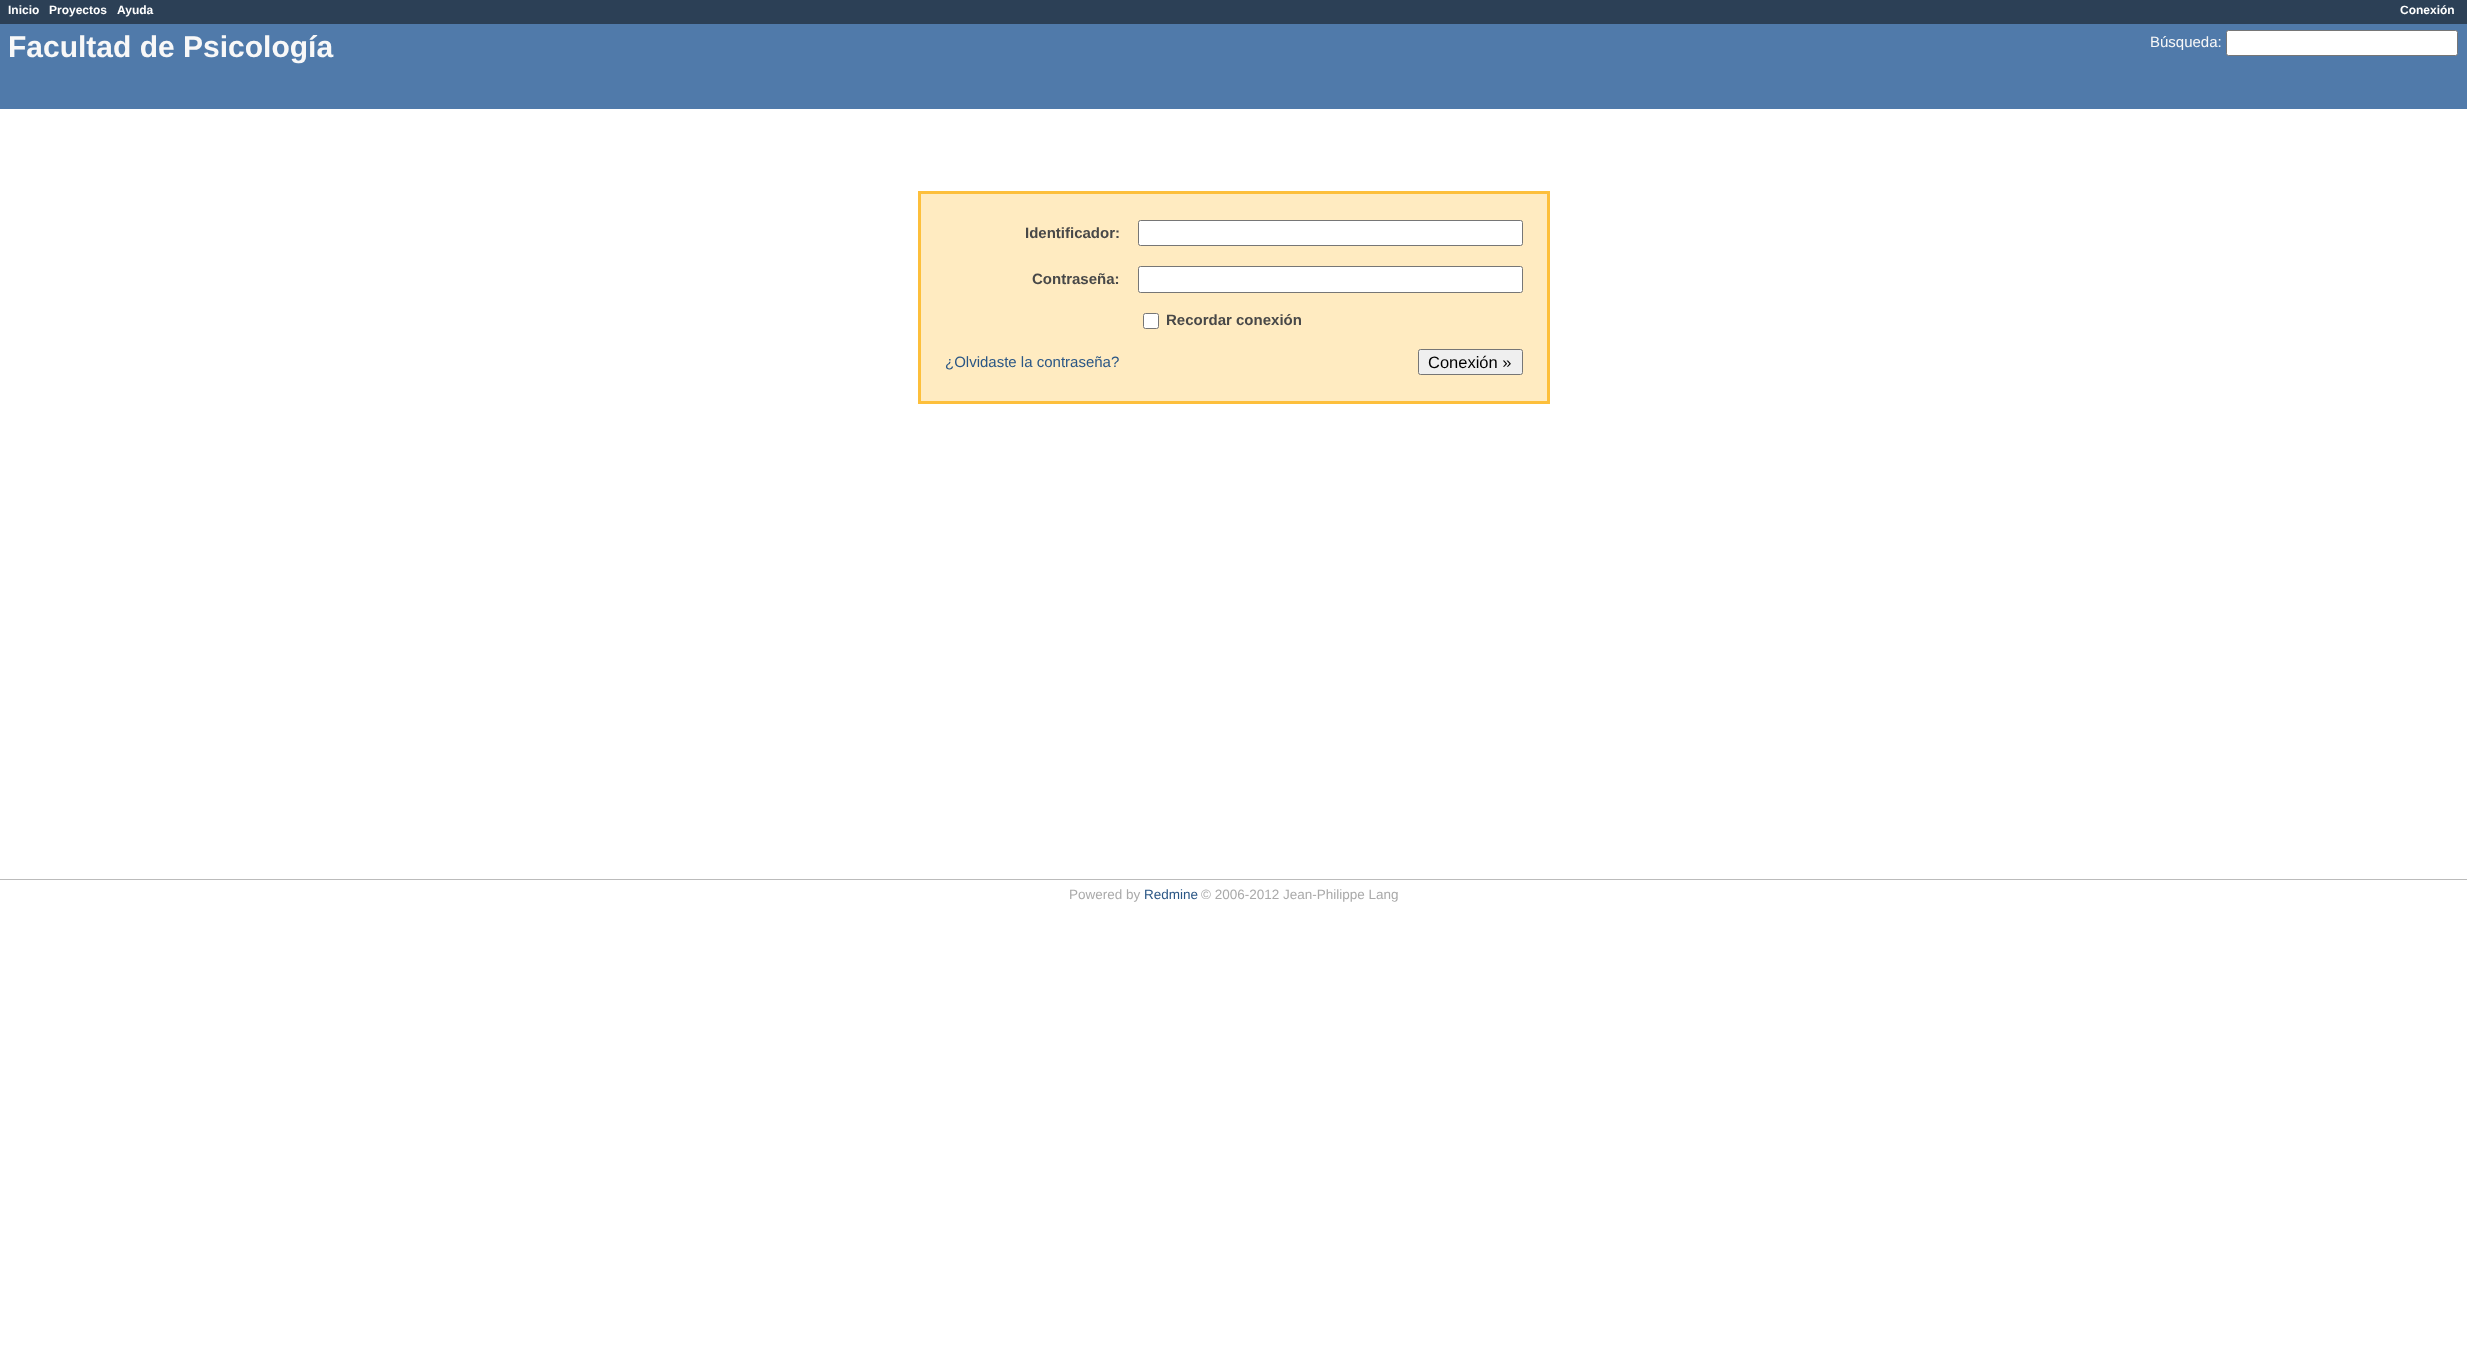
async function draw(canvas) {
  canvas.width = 2467;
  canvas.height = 1359;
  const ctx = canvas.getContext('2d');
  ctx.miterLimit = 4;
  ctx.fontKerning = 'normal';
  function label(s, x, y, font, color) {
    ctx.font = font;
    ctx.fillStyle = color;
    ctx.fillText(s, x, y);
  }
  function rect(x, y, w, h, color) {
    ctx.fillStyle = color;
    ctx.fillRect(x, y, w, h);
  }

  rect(0, 0, 2467, 1359, '#fff');
  rect(0, 0, 2467, 24, '#2c4056');
  label('Inicio', 8, 14, 'bold 12px Liberation Sans', '#fff');
  label('Proyectos', 49, 14, 'bold 12px Liberation Sans', '#fff');
  label('Ayuda', 117, 14, 'bold 12px Liberation Sans', '#fff');
  label('Conexión', 2400, 14, 'bold 12px Liberation Sans', '#fff');
  rect(0, 24, 2467, 85, '#507aaa');
  label('Facultad de Psicología', 8, 57, 'bold 30px Liberation Sans', '#f8f8f8');
  label('Búsqueda:', 2150, 47, '15px Liberation Sans', '#f8f8f8');
  ctx.fillStyle = '#fff';
  ctx.beginPath();
  ctx.roundRect(2226.5, 30.5, 231, 25, 2);
  ctx.fill();
  ctx.strokeStyle = '#767676';
  ctx.stroke();
  ctx.fillStyle = '#ffebc1';
  ctx.beginPath();
  ctx.rect(919.5, 192.5, 629, 210);
  ctx.fill();
  ctx.strokeStyle = '#fdbf3b';
  ctx.lineWidth = 3;
  ctx.stroke();
  label('Identificador:', 1025, 238, 'bold 15px Liberation Sans', '#484848');
  ctx.fillStyle = '#fff';
  ctx.beginPath();
  ctx.roundRect(1138.5, 220.5, 384, 25, 2);
  ctx.fill();
  ctx.strokeStyle = '#767676';
  ctx.lineWidth = 1;
  ctx.stroke();
  label('Contraseña:', 1032, 284, 'bold 15px Liberation Sans', '#484848');
  ctx.fillStyle = '#fff';
  ctx.beginPath();
  ctx.roundRect(1138.5, 266.5, 384, 26, 2);
  ctx.fill();
  ctx.stroke();
  ctx.beginPath();
  ctx.roundRect(1143.5, 313.5, 15, 15, 2);
  ctx.fill();
  ctx.stroke();
  label('Recordar conexión', 1166, 325, 'bold 15px Liberation Sans', '#484848');
  label('¿Olvidaste la contraseña?', 945, 367, '15px Liberation Sans', '#2a5685');
  ctx.fillStyle = '#efefef';
  ctx.beginPath();
  ctx.roundRect(1418.5, 349.5, 104, 25, 2);
  ctx.fill();
  ctx.stroke();
  label('Conexión »', 1428, 368, '16.5px Liberation Sans', '#000');
  rect(0, 879, 2467, 1, '#bbb');
  label('Powered by', 1069, 899, '13.5px Liberation Sans', '#aaa');
  label('Redmine', 1144, 899, '13.5px Liberation Sans', '#2a5685');
  label('© 2006-2012 Jean-Philippe Lang', 1201, 899, '13.5px Liberation Sans', '#aaa');
}

draw(document.querySelector('canvas'));
